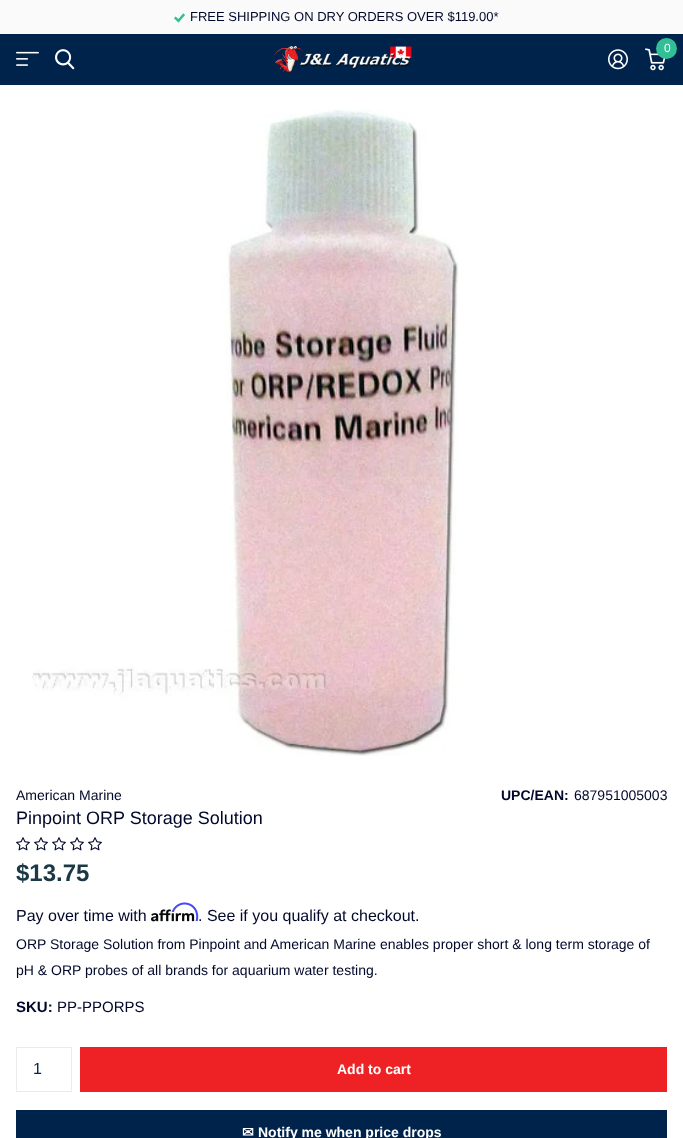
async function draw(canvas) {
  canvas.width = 683;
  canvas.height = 1138;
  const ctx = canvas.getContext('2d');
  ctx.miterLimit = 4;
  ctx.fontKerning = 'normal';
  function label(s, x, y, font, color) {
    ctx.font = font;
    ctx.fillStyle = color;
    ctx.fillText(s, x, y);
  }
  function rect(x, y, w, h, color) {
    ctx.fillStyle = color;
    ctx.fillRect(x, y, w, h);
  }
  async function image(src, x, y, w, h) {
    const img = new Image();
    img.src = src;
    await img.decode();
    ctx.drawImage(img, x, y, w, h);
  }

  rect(0, 0, 683, 1138, '#fff');
  rect(0, 0, 683, 34, '#fafafa');
  await image('assets/img1.png', 174, 13, 11, 10);
  label('FREE SHIPPING ON DRY ORDERS OVER $119.00*', 190, 21, '13px Liberation Sans', '#000729');
  rect(0, 34, 683, 51, '#00234c');
  await image('assets/img2.png', 16, 51, 23, 15);
  await image('assets/img3.png', 55, 49, 20, 21);
  await image('assets/img4.png', 273, 46, 139, 27);
  await image('assets/img5.png', 645, 48, 21, 23);
  ctx.fillStyle = '#32bf96';
  ctx.beginPath();
  ctx.arc(666.5, 48.5, 10.5, 0, 2 * Math.PI);
  ctx.fill();
  label('0', 664, 52, '12px Liberation Sans', '#fff');
  await image('assets/img6.png', 608, 49, 20, 21);
  await image('assets/img7.png', 32, 109, 427, 647);
  label('American Marine', 16, 800, '14px Liberation Sans', '#000729');
  label('UPC/EAN:', 501, 800, 'bold 14px Liberation Sans', '#000729');
  label('687951005003', 574, 800, '14px Liberation Sans', '#000729');
  label('Pinpoint ORP Storage Solution', 16, 824, '18px Liberation Sans', '#000729');
  await image('assets/img8.png', 16, 837, 14, 14);
  await image('assets/img8.png', 34, 837, 14, 14);
  await image('assets/img8.png', 52, 837, 14, 14);
  await image('assets/img8.png', 70, 837, 14, 14);
  await image('assets/img8.png', 88, 837, 14, 14);
  label('$13.75', 16, 881, 'bold 24px Liberation Sans', '#1a3945');
  label('Pay over time with', 16, 921, '16px Liberation Sans', '#000729');
  await image('assets/img10.png', 151, 909, 44, 13);
  await image('assets/img9.png', 171, 902, 28, 20);
  label('. See if you qualify at checkout.', 198, 921, '16px Liberation Sans', '#000729');
  label('ORP Storage Solution from Pinpoint and American Marine enables proper short & long term storage of', 16, 949, '14px Liberation Sans', '#000729');
  label('pH & ORP probes of all brands for aquarium water testing.', 16, 975, '14px Liberation Sans', '#000729');
  label('SKU:', 16, 1012, 'bold 15px Liberation Sans', '#000729');
  label('PP-PPORPS', 57, 1012, '15px Liberation Sans', '#000729');
  ctx.strokeStyle = '#ebebee';
  ctx.strokeRect(16.5, 1047.5, 55, 44);
  label('1', 33, 1074, '16px Liberation Sans', '#00234c');
  rect(80, 1047, 587, 45, '#ee2224');
  label('Add to cart', 337, 1074, 'bold 14px Liberation Sans', '#fff');
  rect(16, 1110, 651, 28, '#00234c');
  label('✉', 242, 1137, 'bold 14px DejaVu Sans', '#fff');
  label('Notify me when price drops', 258, 1137, 'bold 14px Liberation Sans', '#fff');
}

draw(document.querySelector('canvas'));
